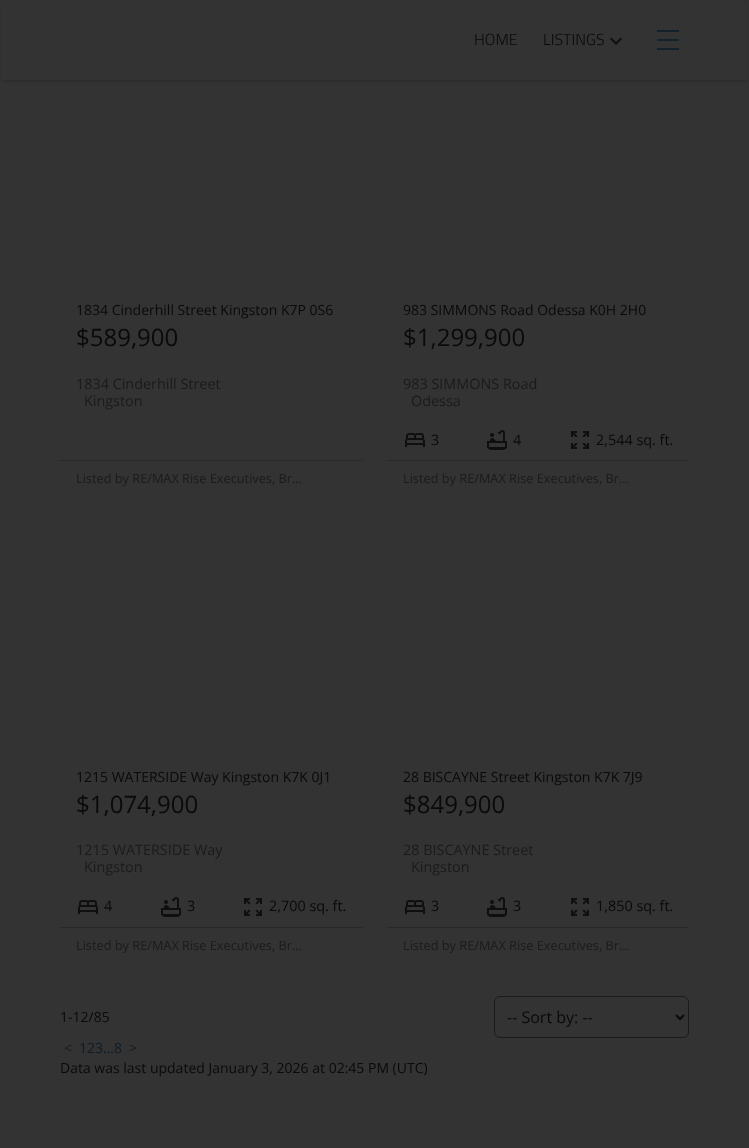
async function draw(canvas) {
  canvas.width = 749;
  canvas.height = 1148;
  const ctx = canvas.getContext('2d');
  ctx.miterLimit = 4;
  ctx.fontKerning = 'normal';
  function label(s, x, y, font, color) {
    ctx.font = font;
    ctx.fillStyle = color;
    ctx.fillText(s, x, y);
  }
  function rect(x, y, w, h, color) {
    ctx.fillStyle = color;
    ctx.fillRect(x, y, w, h);
  }
  async function image(src, x, y, w, h) {
    const img = new Image();
    img.src = src;
    await img.decode();
    ctx.drawImage(img, x, y, w, h);
  }
  let path;

  rect(0, 0, 749, 1148, '#333');
  ctx.fillStyle = '#00000033';
  ctx.filter = 'blur(1.5px)';
  ctx.beginPath();
  ctx.rect(2, 5, 745, 76);
  ctx.fill();
  ctx.filter = 'none';
  rect(1, 4, 747, 76, '#333');
  label('HOME', 474, 45, '300 16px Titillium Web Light', '#0a0a0a');
  label('LISTINGS', 543, 45, '300 16px Titillium Web Light', '#0a0a0a');
  await image('assets/img1.png', 610, 37, 12, 8);
  rect(657, 30, 22, 2, '#13212a');
  rect(657, 39, 22, 2, '#13212a');
  rect(657, 48, 22, 2, '#13212a');
  label('1834 Cinderhill Street Kingston K7P 0S6', 76, 315, '14px Open Sans', '#0a0a0a');
  label('$589,900', 76, 346, '24px Open Sans', '#0a0a0a');
  label('1834 Cinderhill Street', 76, 389, '14.4px Open Sans', '#1b1b1b');
  label('Kingston', 84, 406, '14.4px Open Sans', '#1b1b1b');
  rect(60, 460, 303, 1, '#282828');
  label('Listed by RE/MAX Rise Executives, Br…', 76, 483, '12.75px Open Sans', '#1b1b1b');
  label('983 SIMMONS Road Odessa K0H 2H0', 403, 315, '14px Open Sans', '#0a0a0a');
  label('$1,299,900', 403, 346, '24px Open Sans', '#0a0a0a');
  label('983 SIMMONS Road', 403, 389, '14.4px Open Sans', '#1b1b1b');
  label('Odessa', 411, 406, '14.4px Open Sans', '#1b1b1b');
  await image('assets/img2.png', 405, 433, 20, 14);
  label('3', 431, 445, '14.4px Open Sans', '#0a0a0a');
  await image('assets/img3.png', 487, 430, 20, 20);
  label('4', 513, 445, '14.4px Open Sans', '#0a0a0a');
  await image('assets/img4.png', 571, 431, 18, 18);
  label('2,544 sq. ft.', 596, 445, '14.4px Open Sans', '#0a0a0a');
  rect(387, 460, 302, 1, '#282828');
  label('Listed by RE/MAX Rise Executives, Br…', 403, 483, '12.75px Open Sans', '#1b1b1b');
  label('1215 WATERSIDE Way Kingston K7K 0J1', 76, 782, '14px Open Sans', '#0a0a0a');
  label('$1,074,900', 76, 813, '24px Open Sans', '#0a0a0a');
  label('1215 WATERSIDE Way', 76, 855, '14.4px Open Sans', '#1b1b1b');
  label('Kingston', 84, 872, '14.4px Open Sans', '#1b1b1b');
  await image('assets/img2.png', 78, 900, 20, 14);
  label('4', 104, 911, '14.4px Open Sans', '#0a0a0a');
  await image('assets/img3.png', 161, 897, 20, 20);
  label('3', 187, 911, '14.4px Open Sans', '#0a0a0a');
  await image('assets/img4.png', 244, 898, 18, 18);
  label('2,700 sq. ft.', 269, 911, '14.4px Open Sans', '#0a0a0a');
  rect(60, 927, 303, 1, '#282828');
  label('Listed by RE/MAX Rise Executives, Br…', 76, 950, '12.75px Open Sans', '#1b1b1b');
  label('28 BISCAYNE Street Kingston K7K 7J9', 403, 782, '14px Open Sans', '#0a0a0a');
  label('$849,900', 403, 813, '24px Open Sans', '#0a0a0a');
  label('28 BISCAYNE Street', 403, 855, '14.4px Open Sans', '#1b1b1b');
  label('Kingston', 411, 872, '14.4px Open Sans', '#1b1b1b');
  await image('assets/img2.png', 405, 900, 20, 14);
  label('3', 431, 911, '14.4px Open Sans', '#0a0a0a');
  await image('assets/img3.png', 487, 897, 20, 20);
  label('3', 513, 911, '14.4px Open Sans', '#0a0a0a');
  await image('assets/img4.png', 571, 898, 18, 18);
  label('1,850 sq. ft.', 596, 911, '14.4px Open Sans', '#0a0a0a');
  rect(387, 927, 302, 1, '#282828');
  label('Listed by RE/MAX Rise Executives, Br…', 403, 950, '12.75px Open Sans', '#1b1b1b');
  label('1-12/85', 60, 1022, '14px Open Sans', '#0a0a0a');
  ctx.beginPath();
  ctx.roundRect(494.5, 996.5, 194, 41, 5.5);
  ctx.strokeStyle = '#1b1b1b';
  ctx.stroke();
  path = new Path2D('M676 1015L680 1019L684 1015');
  ctx.strokeStyle = '#0a0a0a';
  ctx.lineWidth = 2;
  ctx.stroke(path);
  label('-- Sort by: --', 507, 1023, '16px Open Sans', '#0a0a0a');
  label('<', 64, 1053, '14px Open Sans', '#0d1c28');
  label('123...8', 79, 1053, '14px Open Sans', '#0d1c28');
  label('>', 129, 1053, '14px Open Sans', '#0d1c28');
  label('Data was last updated January 3, 2026 at 02:45 PM (UTC)', 60, 1073, '14px Open Sans', '#0a0a0a');
}

draw(document.querySelector('canvas'));
